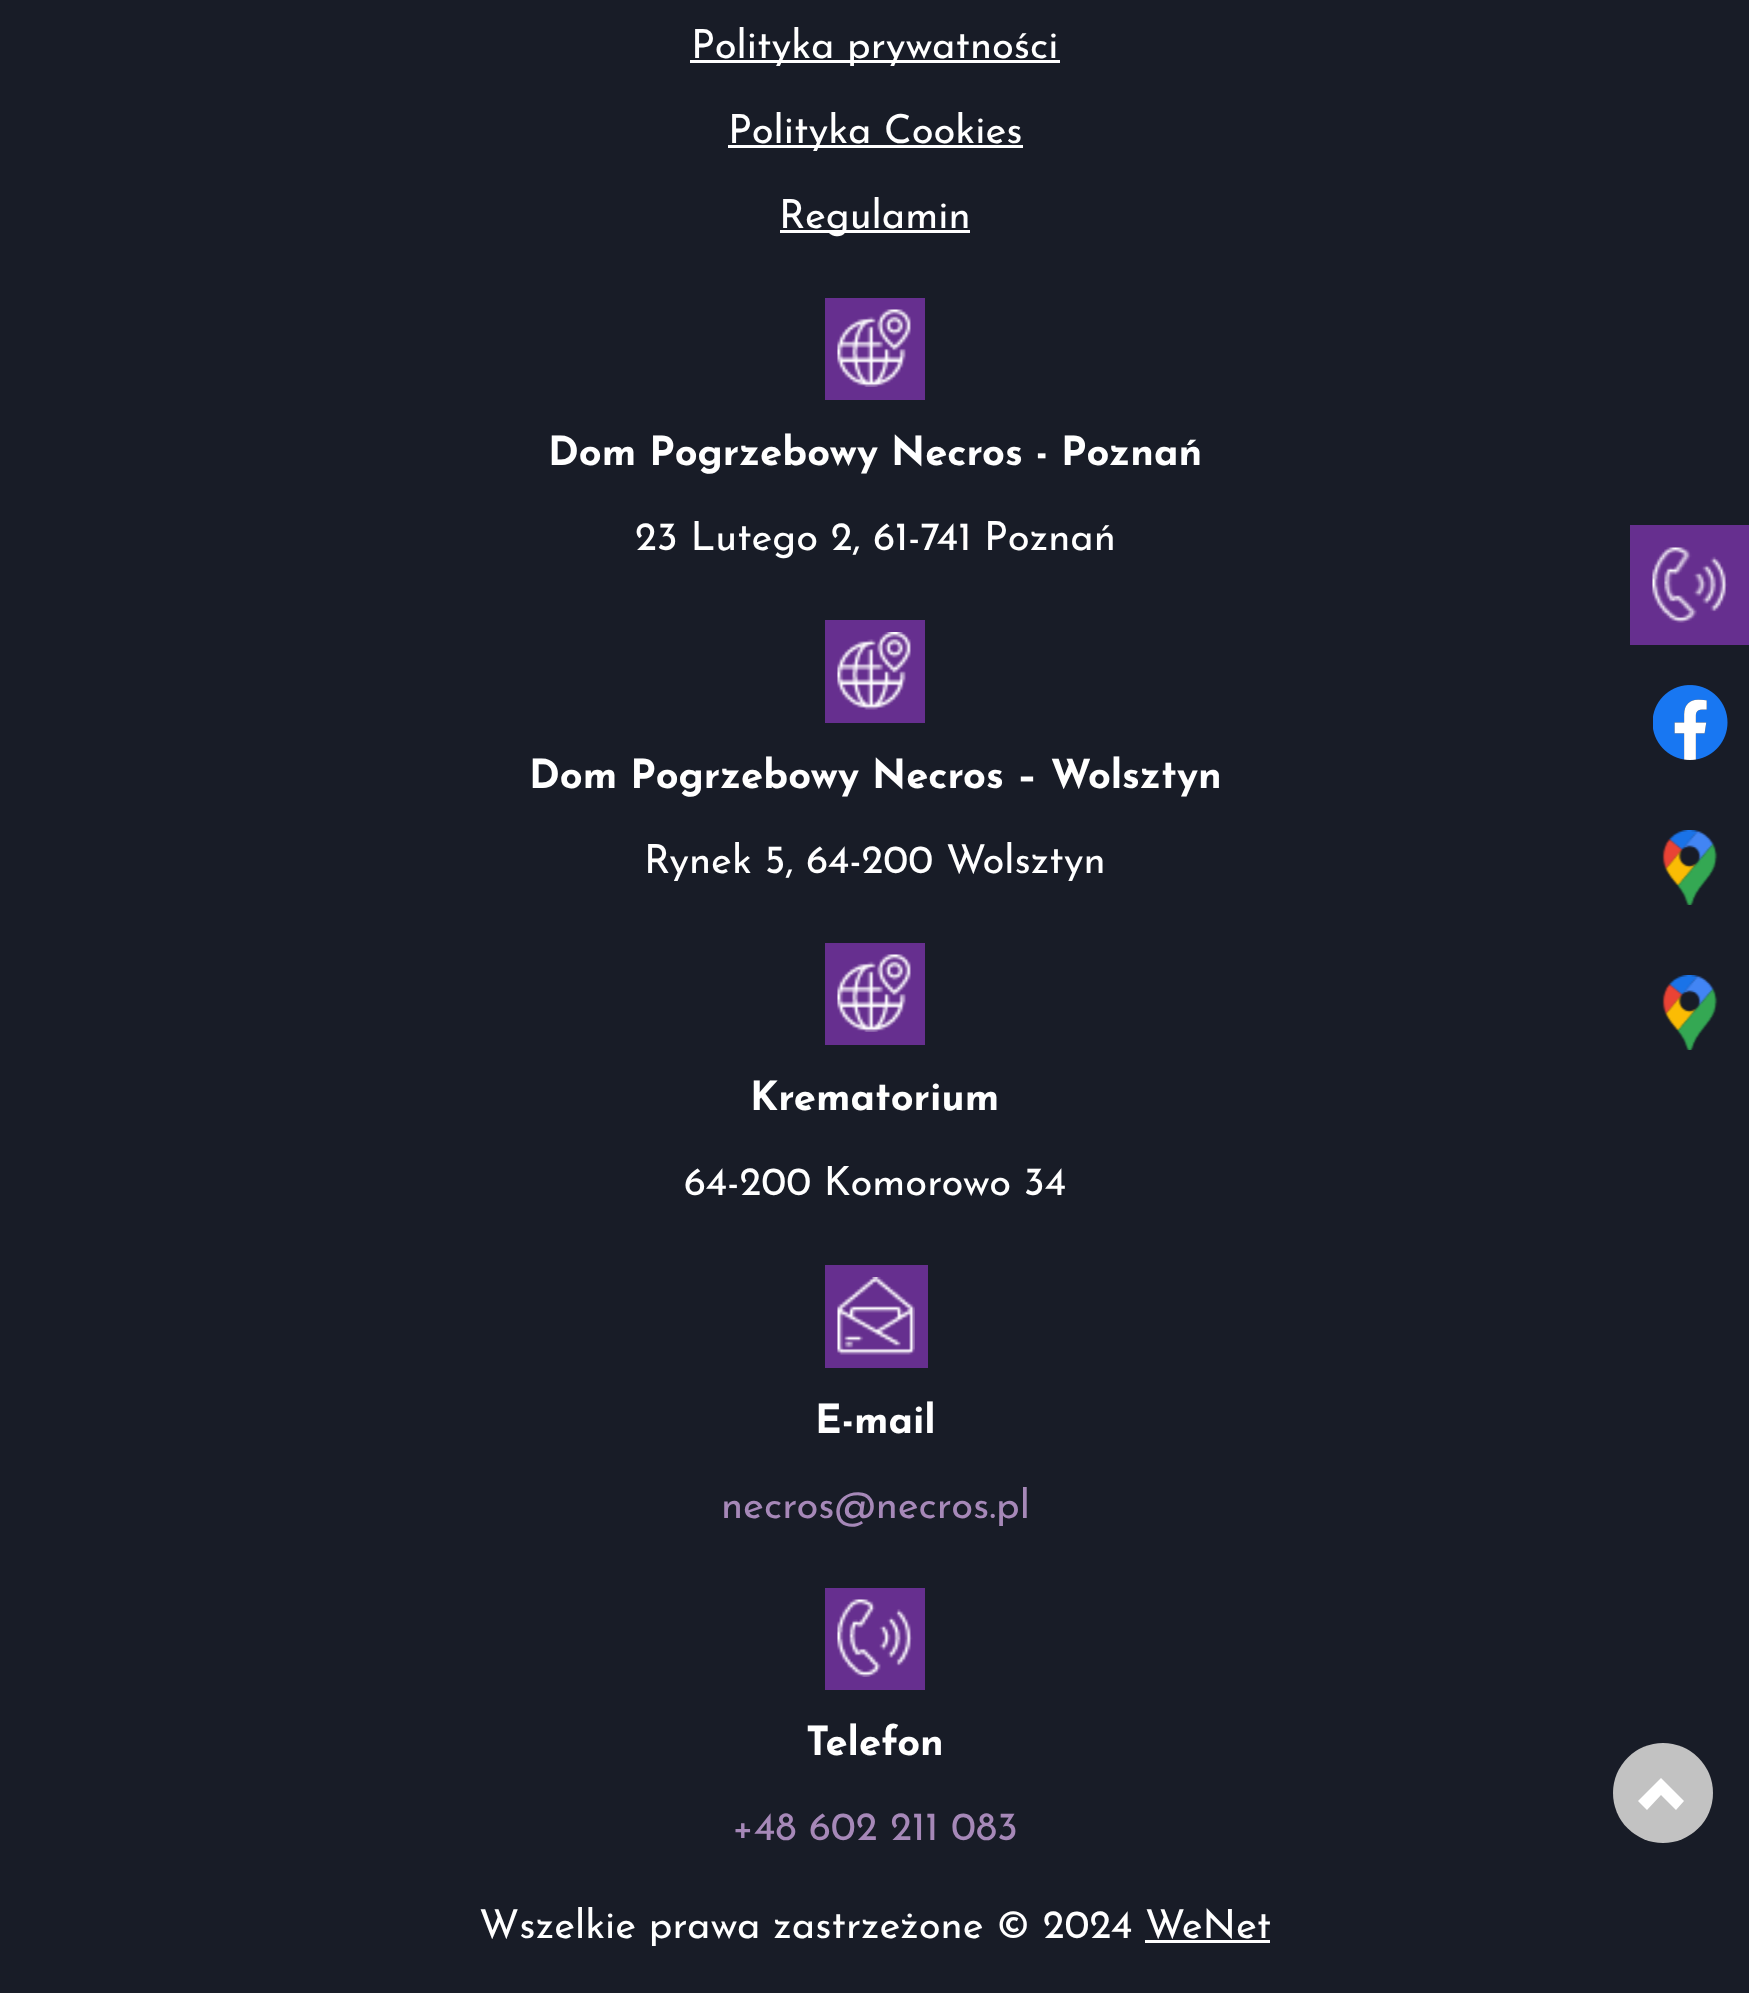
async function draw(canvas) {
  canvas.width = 1749;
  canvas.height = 1993;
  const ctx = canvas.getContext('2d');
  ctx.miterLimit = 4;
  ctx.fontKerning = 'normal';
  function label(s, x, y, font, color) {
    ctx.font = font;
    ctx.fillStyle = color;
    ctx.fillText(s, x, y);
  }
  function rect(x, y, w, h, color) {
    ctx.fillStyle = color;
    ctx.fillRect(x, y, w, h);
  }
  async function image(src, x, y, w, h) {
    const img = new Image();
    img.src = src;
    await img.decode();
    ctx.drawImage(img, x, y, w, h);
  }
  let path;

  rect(0, 0, 1749, 1993, '#181c27');
  rect(690, 60, 370, 3, '#fff');
  label('Polityka prywatności', 691, 58, '40px Josefin Sans', '#fff');
  rect(728, 145, 295, 3, '#fff');
  label('Polityka Cookies', 728, 143, '40px Josefin Sans', '#fff');
  rect(780, 230, 190, 3, '#fff');
  label('Regulamin', 779, 228, '40px Josefin Sans', '#fff');
  rect(825, 298, 100, 102, '#662f8f');
  await image('assets/img1.png', 837, 309, 74, 78);
  label('Dom Pogrzebowy Necros - Poznań', 548, 465, 'bold 40px Josefin Sans', '#fff');
  label('23 Lutego 2, 61-741 Poznań', 635, 550, '40px Josefin Sans', '#fff');
  rect(825, 620, 100, 103, '#662f8f');
  await image('assets/img2.png', 837, 632, 74, 78);
  label('Dom Pogrzebowy Necros – Wolsztyn', 529, 788, 'bold 40px Josefin Sans', '#fff');
  label('Rynek 5, 64-200 Wolsztyn', 644, 873, '40px Josefin Sans', '#fff');
  rect(825, 943, 100, 102, '#662f8f');
  await image('assets/img1.png', 837, 954, 74, 78);
  label('Krematorium', 750, 1110, 'bold 40px Josefin Sans', '#fff');
  label('64-200 Komorowo 34', 684, 1195, '40px Josefin Sans', '#fff');
  rect(825, 1265, 103, 103, '#662f8f');
  await image('assets/img3.png', 837, 1277, 78, 78);
  label('E-mail', 815, 1433, 'bold 40px Josefin Sans', '#fff');
  label('necros@necros.pl', 721, 1518, '40px Josefin Sans', '#a688b8');
  rect(825, 1588, 100, 102, '#662f8f');
  await image('assets/img4.png', 837, 1599, 76, 78);
  label('Telefon', 806, 1755, 'bold 40px Josefin Sans', '#fff');
  label('+48 602 211 083', 732, 1840, '40px Josefin Sans', '#a688b8');
  label('Wszelkie prawa zastrzeżone © 2024 WeNet', 479, 1938, '40px Josefin Sans', '#fff');
  rect(1145, 1940, 125, 3, '#fff');
  rect(1630, 525, 119, 120, '#662f8f');
  await image('assets/img5.png', 1652, 547, 76, 76);
  await image('assets/img6.png', 1653, 685, 75, 75);
  await image('assets/img7.png', 1662, 830, 56, 75);
  await image('assets/img7.png', 1662, 975, 56, 75);
  ctx.fillStyle = '#c2c2c2';
  ctx.beginPath();
  ctx.arc(1663, 1793, 50, 0, 2 * Math.PI);
  ctx.fill();
  ctx.fillStyle = '#fff';
  path = new Path2D('M1684 1801L1676 1810L1661 1795L1647 1810L1638 1801L1661 1778Z');
  ctx.fill(path);
}

draw(document.querySelector('canvas'));
